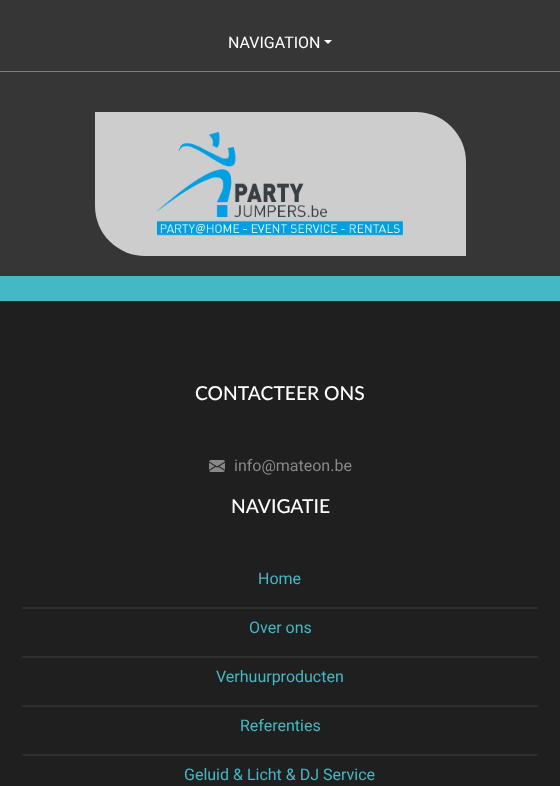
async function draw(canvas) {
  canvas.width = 560;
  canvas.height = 786;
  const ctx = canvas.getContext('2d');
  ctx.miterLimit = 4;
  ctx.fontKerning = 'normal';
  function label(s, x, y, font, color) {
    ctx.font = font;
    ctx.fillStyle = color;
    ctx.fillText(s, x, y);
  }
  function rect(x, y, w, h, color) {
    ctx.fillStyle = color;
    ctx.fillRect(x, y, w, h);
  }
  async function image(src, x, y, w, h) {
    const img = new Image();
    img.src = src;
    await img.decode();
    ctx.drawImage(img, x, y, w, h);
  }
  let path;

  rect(0, 0, 560, 786, '#44b8c5');
  rect(0, 0, 560, 71, '#363636');
  rect(0, 71, 560, 1, '#808080');
  label('NAVIGATION', 228, 48, '16px Roboto', '#fff');
  path = new Path2D('M324 40H332L328 44Z');
  ctx.fill(path);
  rect(0, 72, 560, 204, '#363636');
  ctx.fillStyle = '#cdcdcd';
  ctx.beginPath();
  ctx.roundRect(95, 112, 371, 144, [0, 50, 0, 50]);
  ctx.fill();
  await image('assets/img1.png', 157, 132, 246, 104);
  rect(0, 301, 560, 485, '#1f1f1f');
  label('CONTACTEER ONS', 195, 400, '500 19.25px Lato', '#fff');
  await image('assets/img2.png', 209, 460, 16, 12);
  label('info@mateon.be', 234, 471, '16px Roboto', '#888');
  label('NAVIGATIE', 231, 513, '500 19.25px Lato', '#fff');
  label('Home', 258, 584, '16px Roboto', '#44b8c5');
  rect(22, 607, 516, 2, '#2e2e2e');
  label('Over ons', 249, 633, '16px Roboto', '#44b8c5');
  rect(22, 656, 516, 2, '#2e2e2e');
  label('Verhuurproducten', 216, 682, '16px Roboto', '#44b8c5');
  rect(22, 705, 516, 2, '#2e2e2e');
  label('Referenties', 240, 731, '16px Roboto', '#44b8c5');
  rect(22, 754, 516, 2, '#2e2e2e');
  label('Geluid & Licht & DJ Service', 184, 780, '16px Roboto', '#44b8c5');
}

draw(document.querySelector('canvas'));
